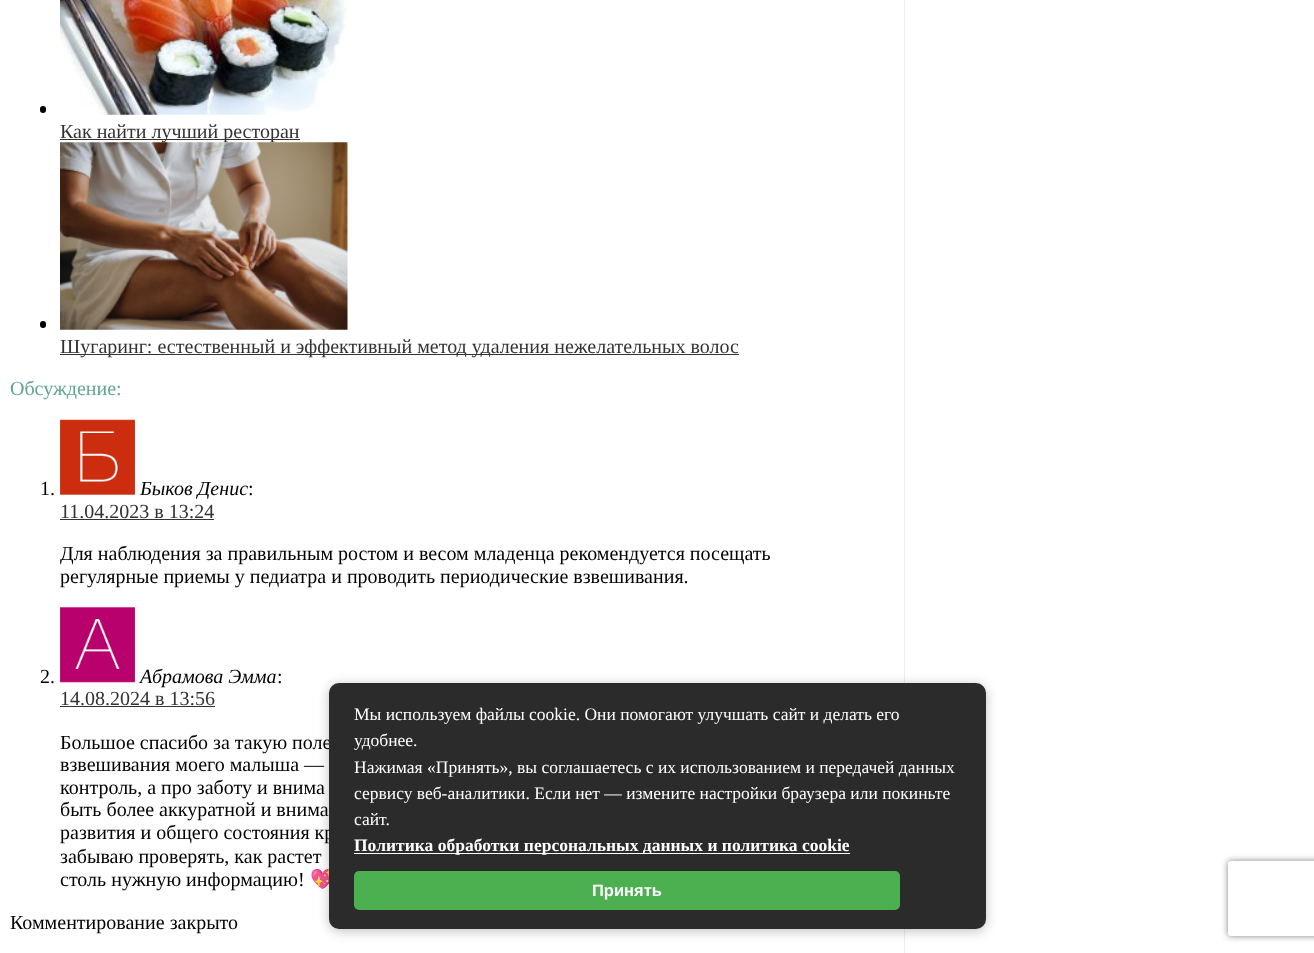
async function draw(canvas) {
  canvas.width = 1314;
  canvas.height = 953;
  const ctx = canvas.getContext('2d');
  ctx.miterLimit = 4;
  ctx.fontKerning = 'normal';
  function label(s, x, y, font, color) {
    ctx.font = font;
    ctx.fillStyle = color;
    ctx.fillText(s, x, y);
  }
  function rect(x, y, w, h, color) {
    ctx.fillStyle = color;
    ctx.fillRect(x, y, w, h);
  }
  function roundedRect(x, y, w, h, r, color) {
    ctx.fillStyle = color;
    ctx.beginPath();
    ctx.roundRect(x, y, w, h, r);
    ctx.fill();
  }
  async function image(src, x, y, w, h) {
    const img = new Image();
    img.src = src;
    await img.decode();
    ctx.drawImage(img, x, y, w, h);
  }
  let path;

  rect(0, 0, 1314, 953, '#fff');
  rect(904, 0, 1, 953, '#eee');
  roundedRect(40, 106, 6, 7, 3, '#000');
  await image('assets/img1.png', 60, 0, 288, 115);
  rect(60, 139, 240, 1, '#333');
  label('Как найти лучший ресторан', 60, 138, '20px Liberation Serif', '#333');
  roundedRect(40, 321, 6, 7, 3, '#000');
  await image('assets/img2.png', 60, 142, 288, 188);
  rect(60, 354, 679, 1, '#333');
  label('Шугаринг: естественный и эффективный метод удаления нежелательных волос', 60, 353, '20px Liberation Serif', '#333');
  label('Обсуждение:', 10, 395, '20px Liberation Serif', '#61a599');
  label('1.', 40, 495, '20px Liberation Serif', '#000');
  await image('assets/img3.png', 60, 419, 75, 76);
  label('Быков Денис', 140, 495, 'italic 20px Liberation Serif', '#000');
  label(':', 248, 495, '20px Liberation Serif', '#000');
  label('11.04.2023 в 13:24', 60, 518, '20px Liberation Serif', '#333');
  rect(60, 519, 154, 1, '#333');
  label('Для наблюдения за правильным ростом и весом младенца рекомендуется посещать', 60, 560, '20px Liberation Serif', '#000');
  label('регулярные приемы у педиатра и проводить периодические взвешивания.', 60, 583, '20px Liberation Serif', '#000');
  label('2.', 40, 683, '20px Liberation Serif', '#000');
  await image('assets/img4.png', 60, 607, 75, 76);
  label('Абрамова Эмма', 140, 683, 'italic 20px Liberation Serif', '#000');
  label(':', 277, 683, '20px Liberation Serif', '#000');
  label('14.08.2024 в 13:56', 60, 705, '20px Liberation Serif', '#333');
  rect(60, 706, 155, 1, '#333');
  label('Большое спасибо за такую поле', 60, 749, '20px Liberation Serif', '#000');
  label('взвешивания моего малыша —', 60, 771, '20px Liberation Serif', '#000');
  label('контроль, а про заботу и внима', 60, 794, '20px Liberation Serif', '#000');
  label('быть более аккуратной и внима', 60, 816, '20px Liberation Serif', '#000');
  label('развития и общего состояния кр', 60, 839, '20px Liberation Serif', '#000');
  label('забываю проверять, как растет', 60, 863, '20px Liberation Serif', '#000');
  label('столь нужную информацию!', 60, 886, '20px Liberation Serif', '#000');
  label('💖', 310, 886, '20px Noto Color Emoji', '#000');
  label('Комментирование закрыто', 10, 929, '20px Liberation Serif', '#000');
  ctx.fillStyle = '#00000040';
  ctx.filter = 'blur(6px)';
  ctx.beginPath();
  ctx.roundRect(329, 685, 657, 246, 10);
  ctx.fill();
  ctx.filter = 'none';
  roundedRect(329, 683, 657, 246, 10, '#2b2b2b');
  label('Мы используем файлы cookie. Они помогают улучшать сайт и делать его', 354, 720, '17.5px Liberation Serif', '#fff');
  label('удобнее.', 354, 746, '17.5px Liberation Serif', '#fff');
  label('Нажимая «Принять», вы соглашаетесь с их использованием и передачей данных', 354, 773, '17.5px Liberation Serif', '#fff');
  label('сервису веб-аналитики. Если нет — измените настройки браузера или покиньте', 354, 799, '17.5px Liberation Serif', '#fff');
  label('сайт.', 354, 825, '17.5px Liberation Serif', '#fff');
  rect(354, 853, 496, 1, '#fefefe');
  label('Политика обработки персональных данных и политика cookie', 354, 851, 'bold 17.5px Liberation Serif', '#fff');
  roundedRect(354, 871, 546, 39, 5, '#4caf50');
  label('Принять', 592, 896, 'bold 16.5px Liberation Sans', '#fff');
  ctx.save();
  path = new Path2D('M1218 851H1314V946H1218ZM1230.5 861H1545.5C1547 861 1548 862 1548 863.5V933.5C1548 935 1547 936 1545.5 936H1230.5C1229 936 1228 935 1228 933.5V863.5C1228 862 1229 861 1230.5 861Z');
  ctx.clip(path, 'evenodd');
  ctx.fillStyle = '#808080';
  ctx.filter = 'blur(3px)';
  ctx.beginPath();
  ctx.roundRect(1228, 861, 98, 75, 2.5);
  ctx.fill();
  ctx.filter = 'none';
  ctx.restore();
}

draw(document.querySelector('canvas'));
